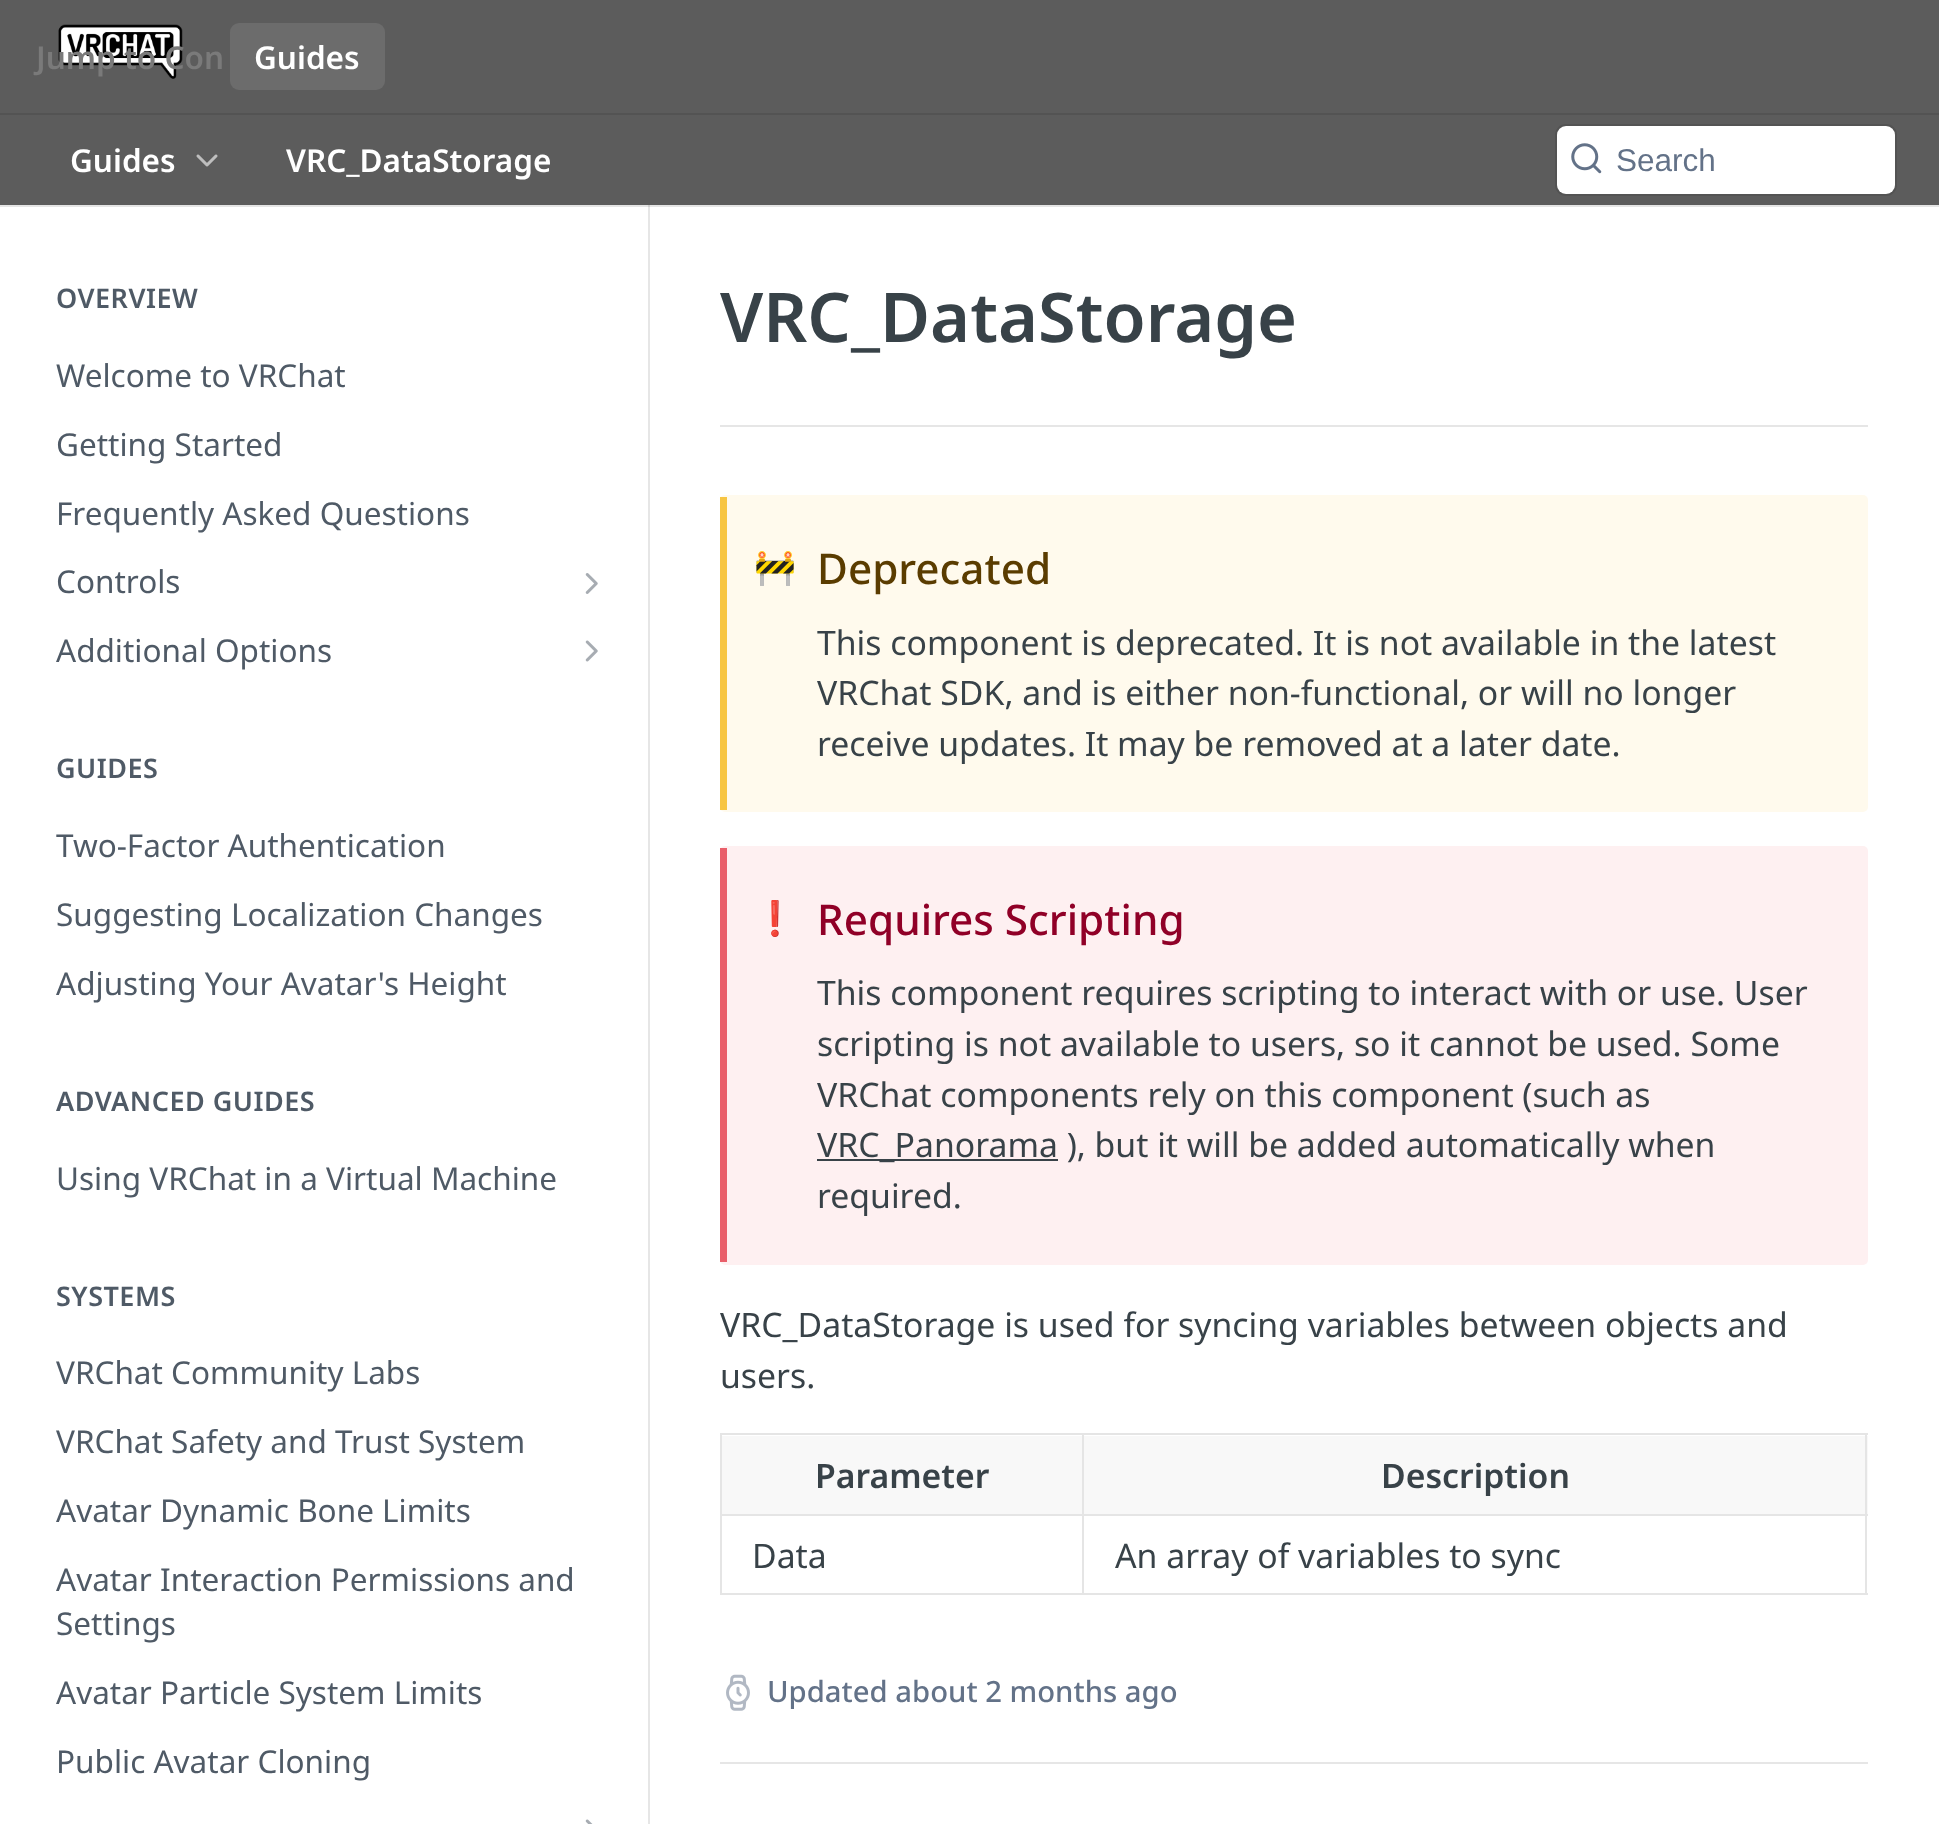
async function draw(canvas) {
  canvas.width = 1939;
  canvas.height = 1824;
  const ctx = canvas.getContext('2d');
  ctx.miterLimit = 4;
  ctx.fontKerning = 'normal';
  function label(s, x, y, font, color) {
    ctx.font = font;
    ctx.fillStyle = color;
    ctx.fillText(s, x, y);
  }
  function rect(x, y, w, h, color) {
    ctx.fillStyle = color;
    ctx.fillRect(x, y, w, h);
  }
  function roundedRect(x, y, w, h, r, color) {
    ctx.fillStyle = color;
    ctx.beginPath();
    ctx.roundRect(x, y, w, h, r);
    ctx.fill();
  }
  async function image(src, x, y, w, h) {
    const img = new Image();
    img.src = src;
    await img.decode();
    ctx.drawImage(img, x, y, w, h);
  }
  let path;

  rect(0, 0, 1939, 1824, '#fff');
  ctx.fillStyle = '#e6e6e6';
  path = new Path2D('M2 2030H650V205H648V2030Z');
  ctx.fill(path);
  ctx.fillStyle = '#0000001a';
  path = new Path2D('M0 205V207H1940V2V205Z');
  ctx.fill(path);
  rect(0, 0, 1939, 205, '#5c5c5c');
  rect(0, 113, 1939, 2, '#535353');
  await image('assets/img1.png', 58, 24, 125, 55);
  label('Jump to Con', 36, 69, '600 31.5px Noto Sans', '#7a7a7a');
  roundedRect(230, 23, 155, 67, 9, '#6c6c6c');
  label('Guides', 254, 69, '600 31.5px Noto Sans', '#fff');
  label('Guides', 70, 172, '600 31.5px Noto Sans', '#fff');
  await image('assets/img2.png', 196, 154, 22, 13);
  label('VRC_DataStorage', 286, 172, '600 31.5px Noto Sans', '#fff');
  ctx.beginPath();
  ctx.roundRect(1556, 125, 340, 70, 10);
  ctx.strokeStyle = '#535353';
  ctx.lineWidth = 2;
  ctx.stroke();
  roundedRect(1557, 126, 338, 68, 9, '#fff');
  await image('assets/img3.png', 1571, 143, 31, 31);
  label('Search', 1616, 171, '31.5px Liberation Sans', '#637288');
  ctx.letterSpacing = '0.5px';
  label('OVERVIEW', 56, 308, '600 27px Noto Sans', '#4f5a66');
  ctx.letterSpacing = '0px';
  label('Welcome to VRChat', 56, 387, '31.5px Noto Sans', '#4f5a66');
  label('Getting Started', 56, 456, '31.5px Noto Sans', '#4f5a66');
  label('Frequently Asked Questions', 56, 525, '31.5px Noto Sans', '#4f5a66');
  label('Controls', 56, 593, '31.5px Noto Sans', '#4f5a66');
  await image('assets/img4.png', 585, 573, 13, 21);
  label('Additional Options', 56, 662, '31.5px Noto Sans', '#4f5a66');
  await image('assets/img5.png', 585, 640, 13, 22);
  ctx.letterSpacing = '0.5px';
  label('GUIDES', 56, 778, '600 27px Noto Sans', '#4f5a66');
  ctx.letterSpacing = '0px';
  label('Two-Factor Authentication', 56, 857, '31.5px Noto Sans', '#4f5a66');
  label('Suggesting Localization Changes', 56, 926, '31.5px Noto Sans', '#4f5a66');
  label('Adjusting Your Avatar\'s Height', 56, 995, '31.5px Noto Sans', '#4f5a66');
  ctx.letterSpacing = '0.5px';
  label('ADVANCED GUIDES', 56, 1111, '600 27px Noto Sans', '#4f5a66');
  ctx.letterSpacing = '0px';
  label('Using VRChat in a Virtual Machine', 56, 1190, '31.5px Noto Sans', '#4f5a66');
  ctx.letterSpacing = '0.5px';
  label('SYSTEMS', 56, 1306, '600 27px Noto Sans', '#4f5a66');
  ctx.letterSpacing = '0px';
  label('VRChat Community Labs', 56, 1384, '31.5px Noto Sans', '#4f5a66');
  label('VRChat Safety and Trust System', 56, 1453, '31.5px Noto Sans', '#4f5a66');
  label('Avatar Dynamic Bone Limits', 56, 1522, '31.5px Noto Sans', '#4f5a66');
  label('Avatar Interaction Permissions and', 56, 1591, '31.5px Noto Sans', '#4f5a66');
  label('Settings', 56, 1635, '31.5px Noto Sans', '#4f5a66');
  label('Avatar Particle System Limits', 56, 1704, '31.5px Noto Sans', '#4f5a66');
  label('Public Avatar Cloning', 56, 1773, '31.5px Noto Sans', '#4f5a66');
  await image('assets/img6.png', 585, 1819, 8, 5);
  rect(720, 425, 1148, 2, '#e6e6e6');
  label('VRC_DataStorage', 720, 342, '600 68.5px Noto Sans', '#384248');
  roundedRect(720, 495, 1148, 317, 5, '#fffaed');
  rect(720, 497, 7, 313, '#f7c543');
  label('🚧', 754, 579, '33.75px Noto Color Emoji', '#384248');
  label('Deprecated', 817, 584, '500 42.25px Noto Sans', '#5a3c00');
  label('This component is deprecated. It is not available in the latest', 817, 655, '33.75px Noto Sans', '#384248');
  label('VRChat SDK, and is either non-functional, or will no longer', 817, 705, '33.75px Noto Sans', '#384248');
  label('receive updates. It may be removed at a later date.', 817, 756, '33.75px Noto Sans', '#384248');
  roundedRect(720, 846, 1148, 419, 5, '#fef0f1');
  rect(720, 848, 7, 414, '#e95f6a');
  label('❗️', 754, 930, '33.75px Noto Color Emoji', '#384248');
  label('Requires Scripting', 817, 935, '500 42.25px Noto Sans', '#900027');
  label('This component requires scripting to interact with or use. User', 817, 1005, '33.75px Noto Sans', '#384248');
  label('scripting is not available to users, so it cannot be used. Some', 817, 1056, '33.75px Noto Sans', '#384248');
  label('VRChat components rely on this component (such as', 817, 1107, '33.75px Noto Sans', '#384248');
  rect(817, 1159, 241, 2, '#384248');
  label('VRC_Panorama ), but it will be added automatically when', 817, 1157, '33.75px Noto Sans', '#384248');
  label('required.', 817, 1208, '33.75px Noto Sans', '#384248');
  label('VRC_DataStorage is used for syncing variables between objects and', 720, 1337, '33.75px Noto Sans', '#384248');
  label('users.', 720, 1388, '33.75px Noto Sans', '#384248');
  rect(720, 1433, 1148, 2, '#e5e5e5');
  rect(722, 1436, 1146, 78, '#f8f8f8');
  rect(1865, 1433, 2, 162, '#e5e5e5');
  rect(720, 1593, 1148, 2, '#e5e5e5');
  rect(720, 1433, 2, 162, '#e5e5e5');
  label('Parameter', 815, 1488, '600 33.75px Noto Sans', '#384248');
  rect(1082, 1514, 786, 2, '#e5e5e5');
  rect(1082, 1514, 2, 81, '#e5e5e5');
  rect(720, 1514, 365, 2, '#e5e5e5');
  rect(1082, 1433, 2, 84, '#e5e5e5');
  label('Description', 1381, 1488, '600 33.75px Noto Sans', '#384248');
  label('Data', 752, 1568, '33.75px Noto Sans', '#384248');
  label('An array of variables to sync', 1115, 1568, '33.75px Noto Sans', '#384248');
  await image('assets/img7.png', 726, 1674, 24, 37);
  label('Updated about 2 months ago', 767, 1702, '500 29.25px Noto Sans', '#637288');
  rect(720, 1762, 1148, 2, '#e6e6e6');
}

draw(document.querySelector('canvas'));
